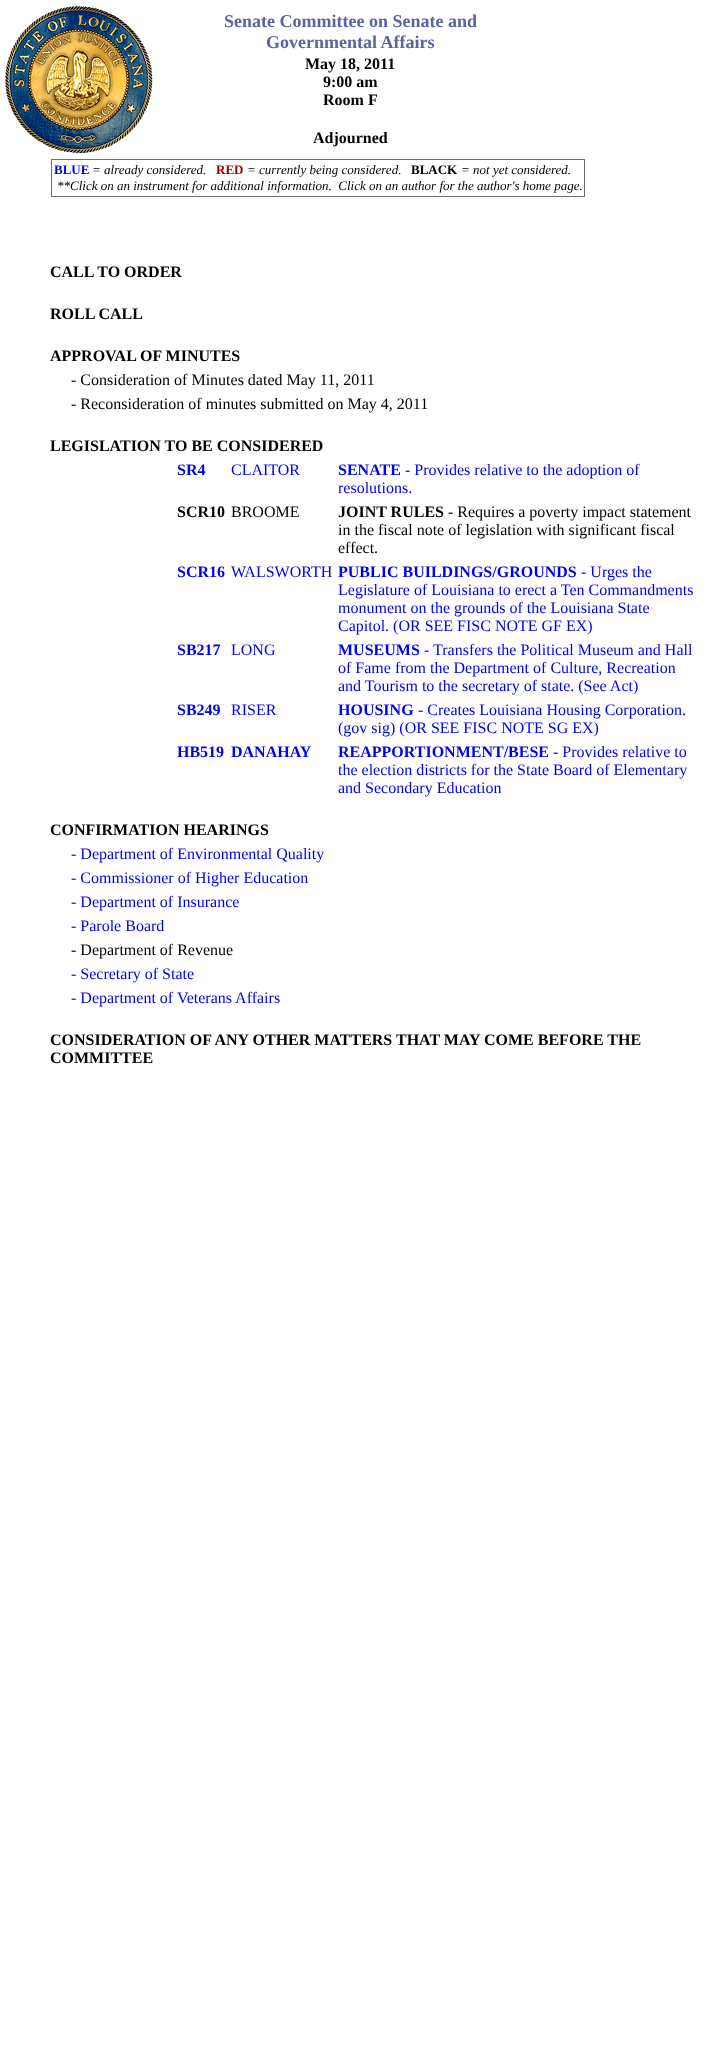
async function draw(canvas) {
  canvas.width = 706;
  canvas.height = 2072;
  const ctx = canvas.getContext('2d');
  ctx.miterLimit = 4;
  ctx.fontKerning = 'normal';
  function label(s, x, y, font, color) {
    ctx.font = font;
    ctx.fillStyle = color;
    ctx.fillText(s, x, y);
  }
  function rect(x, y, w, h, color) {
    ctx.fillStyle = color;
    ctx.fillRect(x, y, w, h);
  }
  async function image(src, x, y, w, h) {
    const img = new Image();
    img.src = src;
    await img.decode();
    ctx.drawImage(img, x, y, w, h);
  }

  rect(0, 0, 706, 2072, '#fff');
  await image('assets/img1.png', 5, 5, 148, 148);
  label('Senate Committee on Senate and', 224, 27, 'bold 18px Liberation Serif', '#5b63a1');
  label('Governmental Affairs', 266, 48, 'bold 18px Liberation Serif', '#5b63a1');
  label('May 18, 2011', 305, 69, 'bold 16px Liberation Serif', '#000');
  label('9:00 am', 323, 87, 'bold 16px Liberation Serif', '#000');
  label('Room F', 323, 105, 'bold 16px Liberation Serif', '#000');
  label('Adjourned', 313, 143, 'bold 16px Liberation Serif', '#000');
  ctx.strokeStyle = '#707070';
  ctx.strokeRect(51.5, 159.5, 533, 37);
  label('BLUE', 54, 174, 'bold 13px Liberation Serif', '#0000f0');
  label('= already considered.', 92, 174, 'italic 13px Liberation Serif', '#000');
  label('RED', 216, 174, 'bold 13px Liberation Serif', '#9a0000');
  label('= currently being considered.', 247, 174, 'italic 13px Liberation Serif', '#000');
  label('BLACK', 411, 174, 'bold 13px Liberation Serif', '#000');
  label('= not yet considered.', 461, 174, 'italic 13px Liberation Serif', '#000');
  label('**Click on an instrument for additional information.  Click on an author for the author\'s home page.', 57, 190, 'italic 13px Liberation Serif', '#000');
  label('CALL TO ORDER', 50, 277, 'bold 16px Liberation Serif', '#000');
  label('ROLL CALL', 50, 319, 'bold 16px Liberation Serif', '#000');
  label('APPROVAL OF MINUTES', 50, 361, 'bold 16px Liberation Serif', '#000');
  label('- Consideration of Minutes dated May 11, 2011', 71, 385, '16px Liberation Serif', '#000');
  label('- Reconsideration of minutes submitted on May 4, 2011', 71, 409, '16px Liberation Serif', '#000');
  label('LEGISLATION TO BE CONSIDERED', 50, 451, 'bold 16px Liberation Serif', '#000');
  label('SR4', 177, 475, 'bold 16px Liberation Serif', '#0000f0');
  label('CLAITOR', 231, 475, '16px Liberation Serif', '#0000f0');
  label('SENATE', 338, 475, 'bold 16px Liberation Serif', '#0000f0');
  label('- Provides relative to the adoption of', 405, 475, '16px Liberation Serif', '#0000f0');
  label('resolutions.', 338, 493, '16px Liberation Serif', '#0000f0');
  label('SCR10', 177, 517, 'bold 16px Liberation Serif', '#000');
  label('BROOME', 231, 517, '16px Liberation Serif', '#000');
  label('JOINT RULES', 338, 517, 'bold 16px Liberation Serif', '#000');
  label('- Requires a poverty impact statement', 448, 517, '16px Liberation Serif', '#000');
  label('in the fiscal note of legislation with significant fiscal', 338, 535, '16px Liberation Serif', '#000');
  label('effect.', 338, 553, '16px Liberation Serif', '#000');
  label('SCR16', 177, 577, 'bold 16px Liberation Serif', '#0000f0');
  label('WALSWORTH', 231, 577, '16px Liberation Serif', '#0000f0');
  label('PUBLIC BUILDINGS/GROUNDS', 338, 577, 'bold 16px Liberation Serif', '#0000f0');
  label('- Urges the', 581, 577, '16px Liberation Serif', '#0000f0');
  label('Legislature of Louisiana to erect a Ten Commandments', 338, 595, '16px Liberation Serif', '#0000f0');
  label('monument on the grounds of the Louisiana State', 338, 613, '16px Liberation Serif', '#0000f0');
  label('Capitol. (OR SEE FISC NOTE GF EX)', 338, 631, '16px Liberation Serif', '#0000f0');
  label('SB217', 177, 655, 'bold 16px Liberation Serif', '#0000f0');
  label('LONG', 231, 655, '16px Liberation Serif', '#0000f0');
  label('MUSEUMS', 338, 655, 'bold 16px Liberation Serif', '#0000f0');
  label('- Transfers the Political Museum and Hall', 424, 655, '16px Liberation Serif', '#0000f0');
  label('of Fame from the Department of Culture, Recreation', 338, 673, '16px Liberation Serif', '#0000f0');
  label('and Tourism to the secretary of state. (See Act)', 338, 691, '16px Liberation Serif', '#0000f0');
  label('SB249', 177, 715, 'bold 16px Liberation Serif', '#0000f0');
  label('RISER', 231, 715, '16px Liberation Serif', '#0000f0');
  label('HOUSING', 338, 715, 'bold 16px Liberation Serif', '#0000f0');
  label('- Creates Louisiana Housing Corporation.', 418, 715, '16px Liberation Serif', '#0000f0');
  label('(gov sig) (OR SEE FISC NOTE SG EX)', 338, 733, '16px Liberation Serif', '#0000f0');
  label('HB519', 177, 757, 'bold 16px Liberation Serif', '#0000f0');
  label('DANAHAY', 231, 757, 'bold 16px Liberation Serif', '#0000f0');
  label('REAPPORTIONMENT/BESE', 338, 757, 'bold 16px Liberation Serif', '#0000f0');
  label('- Provides relative to', 553, 757, '16px Liberation Serif', '#0000f0');
  label('the election districts for the State Board of Elementary', 338, 775, '16px Liberation Serif', '#0000f0');
  label('and Secondary Education', 338, 793, '16px Liberation Serif', '#0000f0');
  label('CONFIRMATION HEARINGS', 50, 835, 'bold 16px Liberation Serif', '#000');
  label('- Department of Environmental Quality', 71, 859, '16px Liberation Serif', '#0000f0');
  label('- Commissioner of Higher Education', 71, 883, '16px Liberation Serif', '#0000f0');
  label('- Department of Insurance', 71, 907, '16px Liberation Serif', '#0000f0');
  label('- Parole Board', 71, 931, '16px Liberation Serif', '#0000f0');
  label('- Department of Revenue', 71, 955, '16px Liberation Serif', '#000');
  label('- Secretary of State', 71, 979, '16px Liberation Serif', '#0000f0');
  label('- Department of Veterans Affairs', 71, 1003, '16px Liberation Serif', '#0000f0');
  label('CONSIDERATION OF ANY OTHER MATTERS THAT MAY COME BEFORE THE', 50, 1045, 'bold 16px Liberation Serif', '#000');
  label('COMMITTEE', 50, 1063, 'bold 16px Liberation Serif', '#000');
}

draw(document.querySelector('canvas'));
